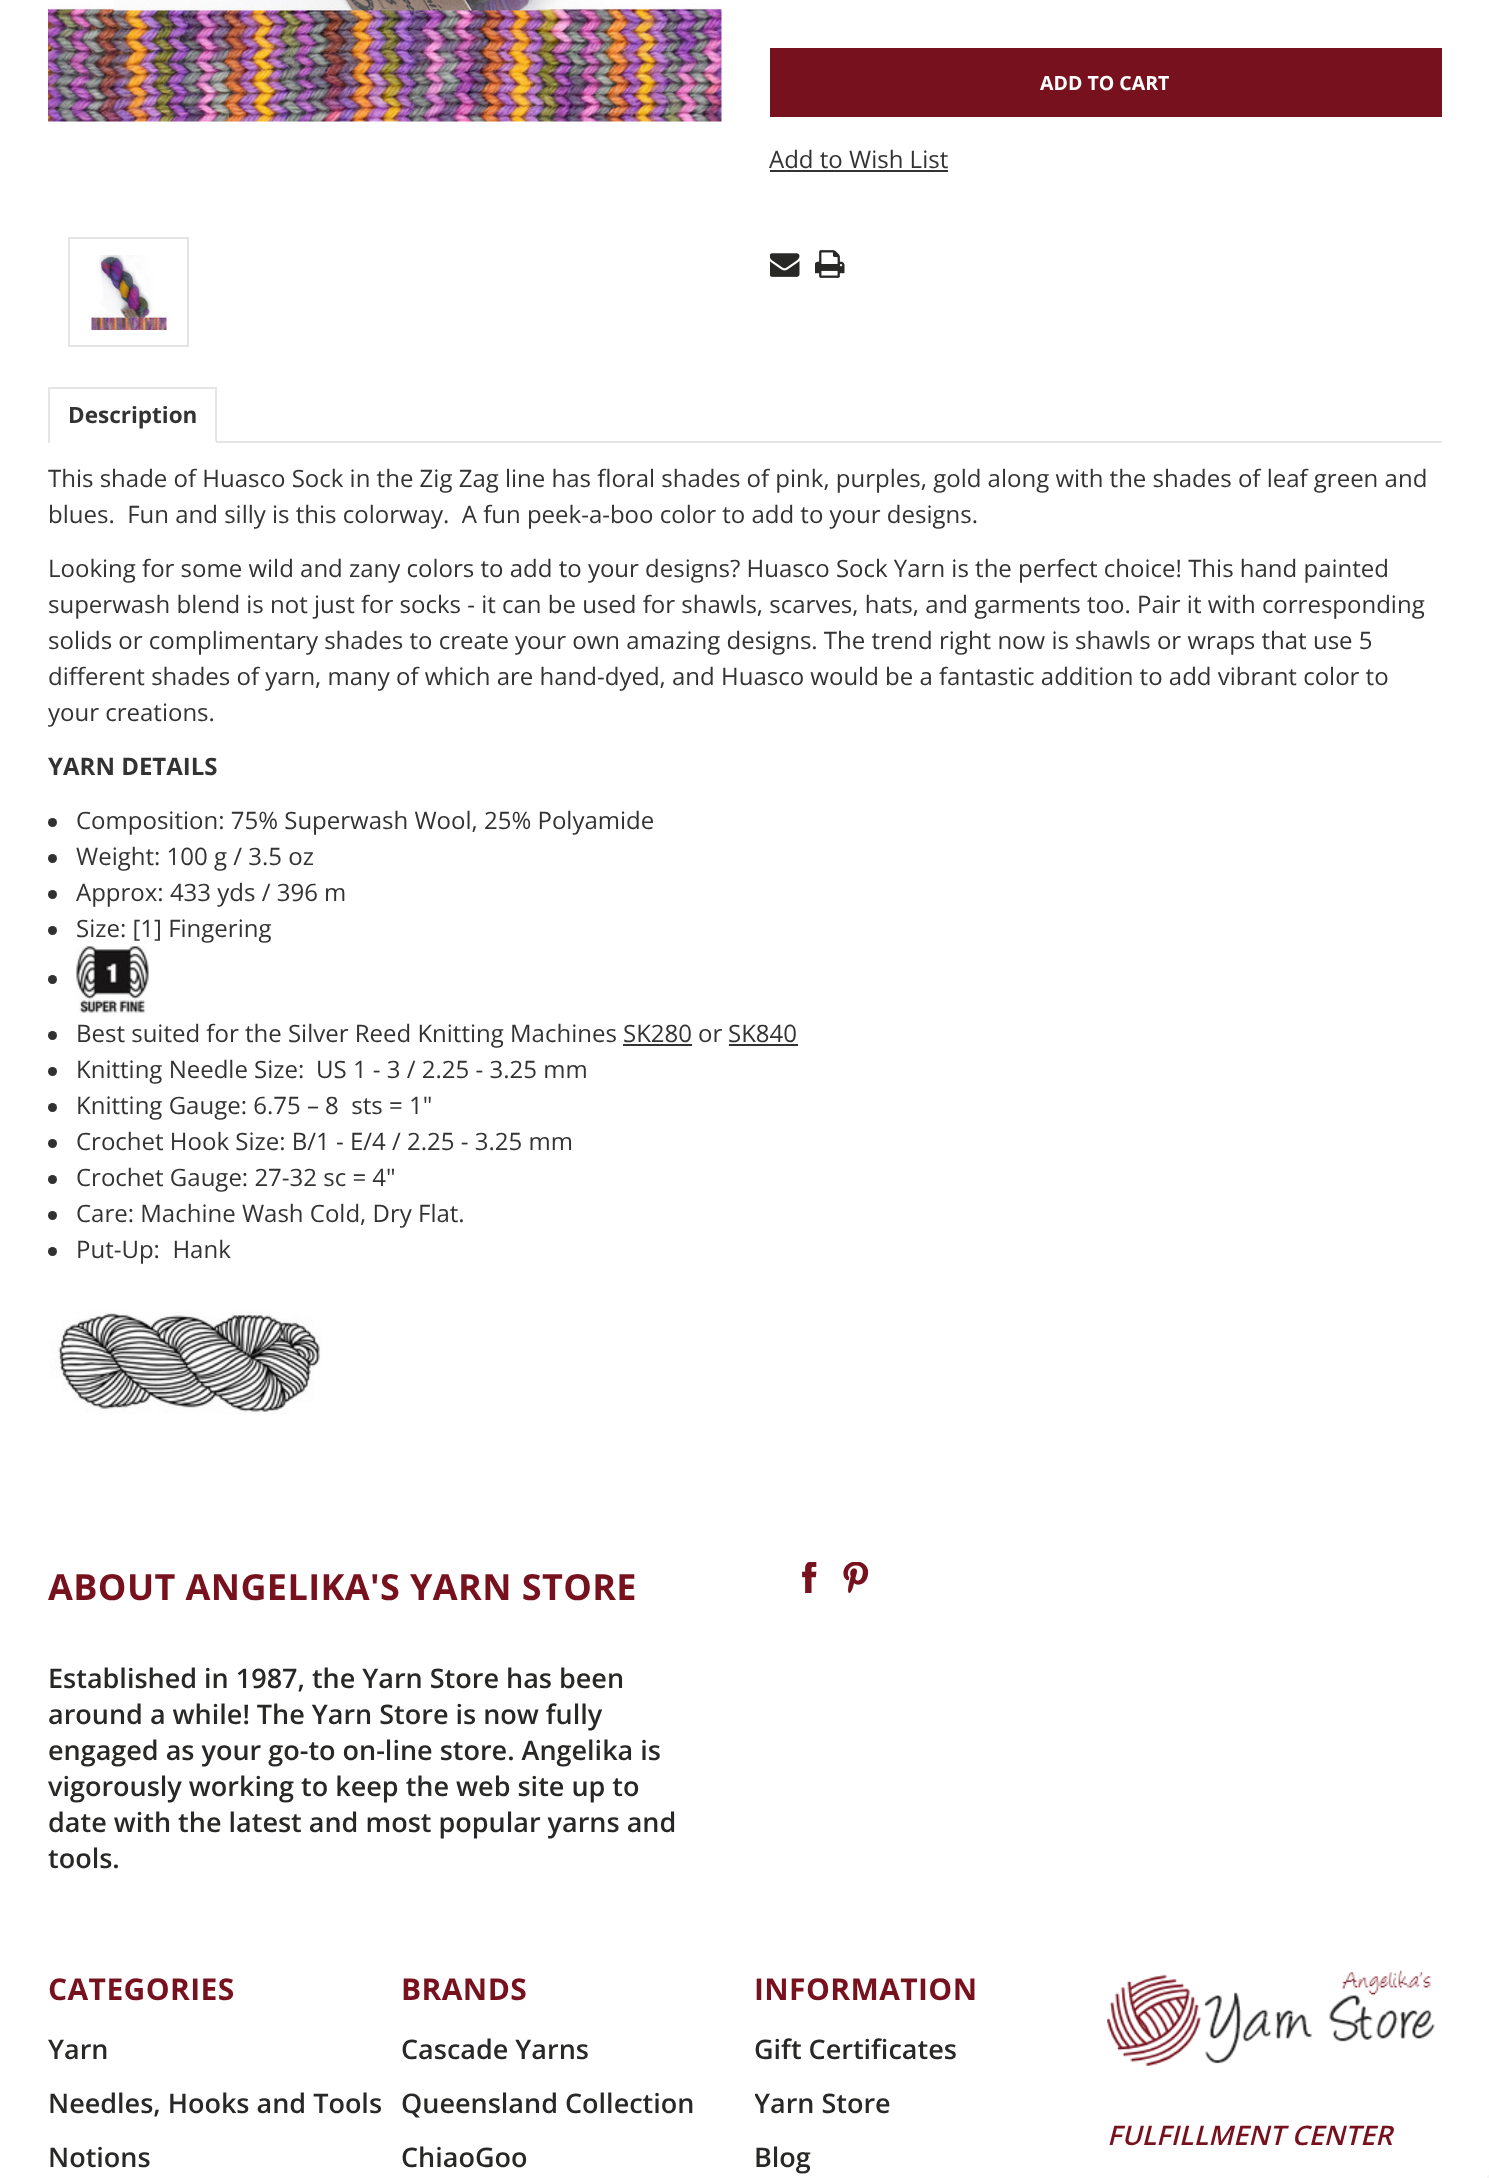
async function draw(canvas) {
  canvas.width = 1489;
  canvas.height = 2178;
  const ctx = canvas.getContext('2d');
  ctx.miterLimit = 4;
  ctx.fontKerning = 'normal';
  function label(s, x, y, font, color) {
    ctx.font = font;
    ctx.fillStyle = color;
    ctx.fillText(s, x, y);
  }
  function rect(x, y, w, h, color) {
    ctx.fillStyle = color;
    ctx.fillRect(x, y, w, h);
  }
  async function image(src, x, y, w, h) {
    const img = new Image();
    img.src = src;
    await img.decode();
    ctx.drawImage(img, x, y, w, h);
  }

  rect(0, 0, 1489, 2178, '#fff');
  await image('assets/img1.png', 48, 0, 674, 122);
  ctx.strokeStyle = '#e5e5e5';
  ctx.lineWidth = 2;
  ctx.strokeRect(69, 238, 119, 108);
  await image('assets/img2.png', 91, 255, 76, 75);
  rect(770, 48, 672, 69, '#78111e');
  label('ADD TO CART', 1040, 90, 'bold 19.5px Open Sans', '#fff');
  label('Add to Wish List', 769, 168, '24px Open Sans', '#333');
  rect(770, 170, 178, 2, '#333');
  await image('assets/img3.png', 770, 253, 30, 24);
  await image('assets/img4.png', 815, 250, 30, 28);
  rect(217, 441, 1225, 2, '#e5e5e5');
  rect(48, 387, 168, 2, '#e5e5e5');
  rect(215, 387, 2, 56, '#e5e5e5');
  rect(215, 441, 1, 2, '#fff');
  rect(48, 387, 2, 56, '#e5e5e5');
  label('Description', 68, 423, 'bold 22.5px Open Sans', '#333');
  label('This shade of Huasco Sock in the Zig Zag line has floral shades of pink, purples, gold along with the shades of leaf green and', 48, 487, '24px Open Sans', '#333');
  label('blues.  Fun and silly is this colorway.  A fun peek-a-boo color to add to your designs.', 48, 523, '24px Open Sans', '#333');
  label('Looking for some wild and zany colors to add to your designs? Huasco Sock Yarn is the perfect choice! This hand painted', 48, 577, '24px Open Sans', '#333');
  label('superwash blend is not just for socks - it can be used for shawls, scarves, hats, and garments too. Pair it with corresponding', 48, 613, '24px Open Sans', '#333');
  label('solids or complimentary shades to create your own amazing designs. The trend right now is shawls or wraps that use 5', 48, 649, '24px Open Sans', '#333');
  label('different shades of yarn, many of which are hand-dyed, and Huasco would be a fantastic addition to add vibrant color to', 48, 685, '24px Open Sans', '#333');
  label('your creations.', 48, 721, '24px Open Sans', '#333');
  label('YARN DETAILS', 48, 775, 'bold 24px Open Sans', '#333');
  ctx.fillStyle = '#313131';
  ctx.beginPath();
  ctx.arc(52.5, 822.5, 4.5, 0, 2 * Math.PI);
  ctx.fill();
  label('Composition: 75% Superwash Wool, 25% Polyamide', 76, 829, '24px Open Sans', '#333');
  ctx.fillStyle = '#313131';
  ctx.beginPath();
  ctx.arc(52.5, 858.5, 4.5, 0, 2 * Math.PI);
  ctx.fill();
  label('Weight: 100 g / 3.5 oz', 76, 865, '24px Open Sans', '#333');
  ctx.fillStyle = '#313131';
  ctx.beginPath();
  ctx.arc(52.5, 894.5, 4.5, 0, 2 * Math.PI);
  ctx.fill();
  label('Approx: 433 yds / 396 m', 76, 901, '24px Open Sans', '#333');
  ctx.fillStyle = '#313131';
  ctx.beginPath();
  ctx.arc(52.5, 930.5, 4.5, 0, 2 * Math.PI);
  ctx.fill();
  label('Size: [1] Fingering', 76, 937, '24px Open Sans', '#333');
  ctx.fillStyle = '#313131';
  ctx.beginPath();
  ctx.arc(52.5, 979.5, 4.5, 0, 2 * Math.PI);
  ctx.fill();
  await image('assets/img5.png', 75, 946, 74, 69);
  ctx.beginPath();
  ctx.arc(52.5, 1035.5, 4.5, 0, 2 * Math.PI);
  ctx.fill();
  label('Best suited for the Silver Reed Knitting Machines', 76, 1042, '24px Open Sans', '#333');
  label('SK280', 623, 1042, '24px Open Sans', '#333');
  rect(623, 1044, 69, 2, '#333');
  label('or', 698, 1042, '24px Open Sans', '#333');
  label('SK840', 728, 1042, '24px Open Sans', '#333');
  rect(729, 1044, 69, 2, '#333');
  ctx.fillStyle = '#313131';
  ctx.beginPath();
  ctx.arc(52.5, 1071.5, 4.5, 0, 2 * Math.PI);
  ctx.fill();
  label('Knitting Needle Size:', 76, 1078, '24px Open Sans', '#333');
  label('US 1 - 3 / 2.25 - 3.25 mm', 316, 1078, '24px Open Sans', '#333');
  ctx.fillStyle = '#313131';
  ctx.beginPath();
  ctx.arc(52.5, 1107.5, 4.5, 0, 2 * Math.PI);
  ctx.fill();
  label('Knitting Gauge: 6.75 – 8  sts = 1"', 76, 1114, '24px Open Sans', '#333');
  ctx.fillStyle = '#313131';
  ctx.beginPath();
  ctx.arc(52.5, 1143.5, 4.5, 0, 2 * Math.PI);
  ctx.fill();
  label('Crochet Hook Size: B/1 - E/4 / 2.25 - 3.25 mm', 76, 1150, '24px Open Sans', '#333');
  ctx.fillStyle = '#313131';
  ctx.beginPath();
  ctx.arc(52.5, 1179.5, 4.5, 0, 2 * Math.PI);
  ctx.fill();
  label('Crochet Gauge: 27-32 sc = 4"', 76, 1186, '24px Open Sans', '#333');
  ctx.fillStyle = '#313131';
  ctx.beginPath();
  ctx.arc(52.5, 1215.5, 4.5, 0, 2 * Math.PI);
  ctx.fill();
  label('Care: Machine Wash Cold, Dry Flat.', 76, 1222, '24px Open Sans', '#333');
  ctx.fillStyle = '#313131';
  ctx.beginPath();
  ctx.arc(52.5, 1251.5, 4.5, 0, 2 * Math.PI);
  ctx.fill();
  label('Put-Up:  Hank', 76, 1258, '24px Open Sans', '#333');
  await image('assets/img6.png', 50, 1311, 272, 103);
  ctx.letterSpacing = '0.4px';
  label('ABOUT ANGELIKA\'S YARN STORE', 48, 1600, 'bold 36px Open Sans', '#78111e');
  ctx.letterSpacing = '0px';
  label('Established in 1987, the Yarn Store has been', 48, 1688, '600 27px Open Sans', '#282827');
  label('around a while! The Yarn Store is now fully', 48, 1724, '600 27px Open Sans', '#282827');
  label('engaged as your go-to on-line store. Angelika is', 48, 1760, '600 27px Open Sans', '#282827');
  label('vigorously working to keep the web site up to', 48, 1796, '600 27px Open Sans', '#282827');
  label('date with the latest and most popular yarns and', 48, 1832, '600 27px Open Sans', '#282827');
  label('tools.', 48, 1868, '600 27px Open Sans', '#282827');
  await image('assets/img7.png', 802, 1562, 15, 31);
  await image('assets/img8.png', 843, 1562, 26, 31);
  ctx.letterSpacing = '0.4px';
  label('CATEGORIES', 48, 2000, 'bold 30px Open Sans', '#78111e');
  ctx.letterSpacing = '0px';
  label('Yarn', 48, 2059, '600 27px Open Sans', '#282827');
  label('Needles, Hooks and Tools', 48, 2113, '600 27px Open Sans', '#282827');
  label('Notions', 48, 2167, '600 27px Open Sans', '#282827');
  ctx.letterSpacing = '0.4px';
  label('BRANDS', 401, 2000, 'bold 30px Open Sans', '#78111e');
  ctx.letterSpacing = '0px';
  label('Cascade Yarns', 401, 2059, '600 27px Open Sans', '#282827');
  label('Queensland Collection', 401, 2113, '600 27px Open Sans', '#282827');
  label('ChiaoGoo', 401, 2167, '600 27px Open Sans', '#282827');
  ctx.letterSpacing = '0.4px';
  label('INFORMATION', 754, 2000, 'bold 30px Open Sans', '#78111e');
  ctx.letterSpacing = '0px';
  label('Gift Certificates', 754, 2059, '600 27px Open Sans', '#282827');
  ctx.save();
  ctx.beginPath();
  ctx.rect(755, 2036, 334, 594);
  ctx.clip();
  label('Yarn Store', 754, 2113, '600 27px Open Sans', '#282827');
  ctx.restore();
  label('Blog', 754, 2167, '600 27px Open Sans', '#282827');
  await image('assets/img9.png', 1107, 1970, 328, 97);
  label('FULFILLMENT CENTER', 1107, 2145, 'italic 600 27px Open Sans', '#78111e');
  rect(1487, 2175, 2, 3, '#f5f5f5');
}

draw(document.querySelector('canvas'));
